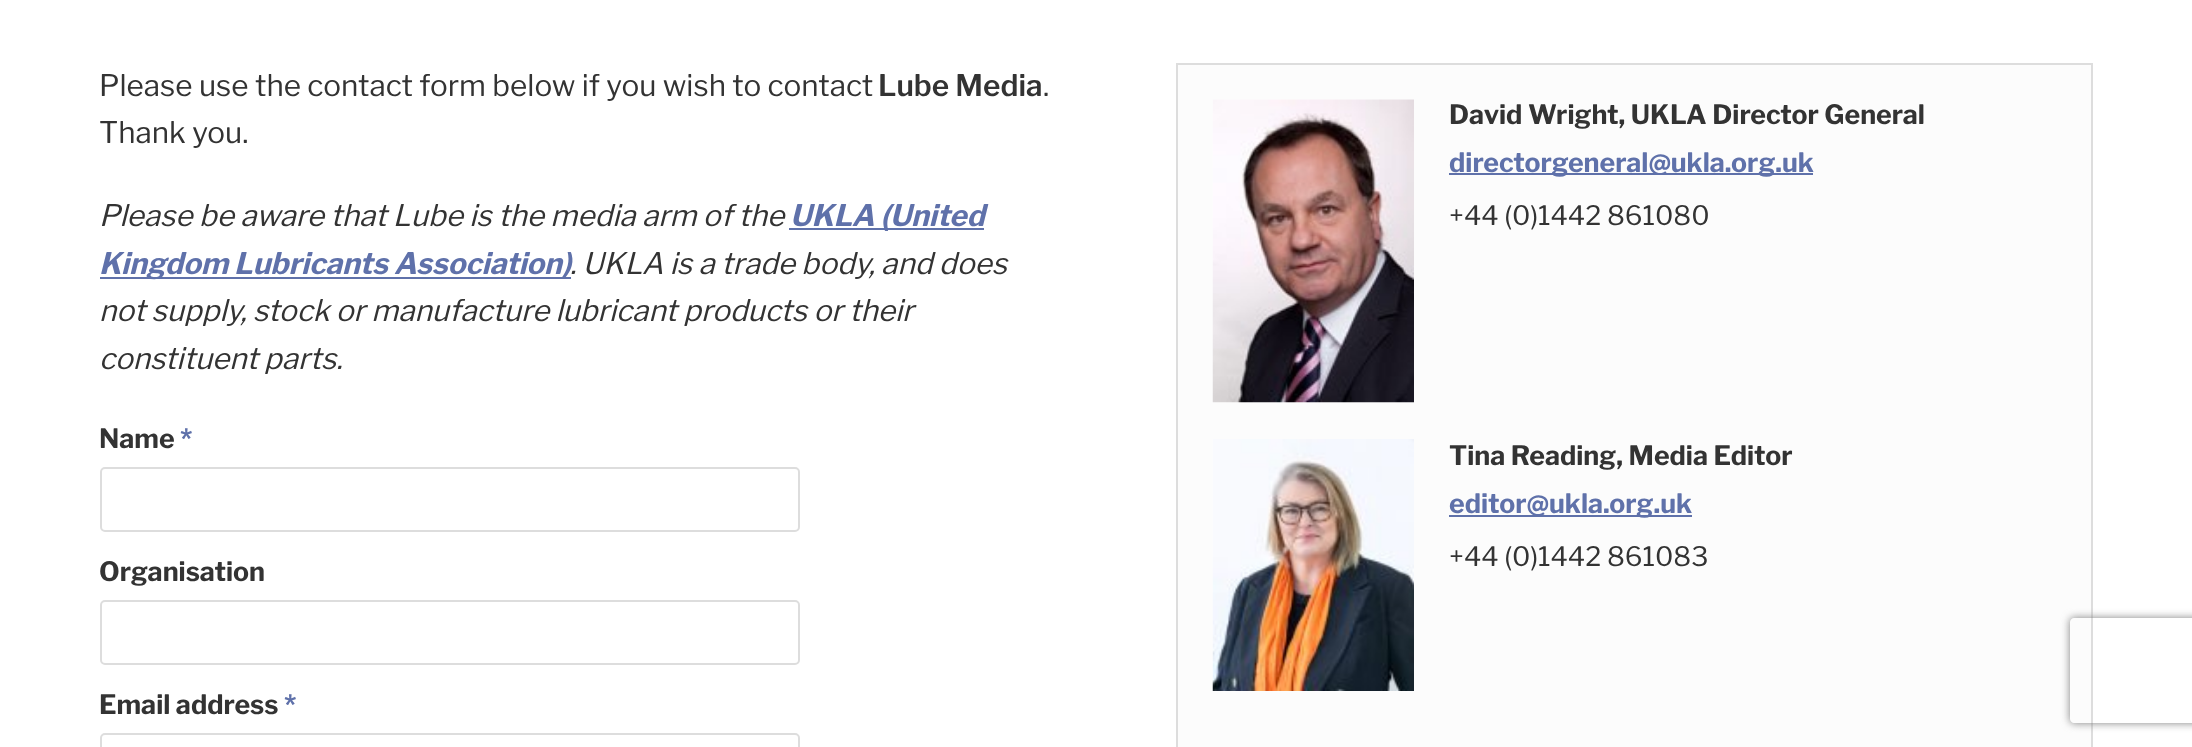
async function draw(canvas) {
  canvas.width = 2192;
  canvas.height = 747;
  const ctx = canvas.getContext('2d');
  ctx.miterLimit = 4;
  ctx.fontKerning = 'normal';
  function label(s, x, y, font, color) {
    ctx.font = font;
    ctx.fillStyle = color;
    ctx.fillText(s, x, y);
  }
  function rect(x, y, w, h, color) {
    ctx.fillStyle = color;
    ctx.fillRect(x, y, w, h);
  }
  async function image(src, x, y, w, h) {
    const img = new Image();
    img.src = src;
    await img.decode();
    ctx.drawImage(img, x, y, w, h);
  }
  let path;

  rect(0, 0, 2192, 747, '#fff');
  label('Please use the contact form below if you wish to contact', 99, 96, '29.7px Libre Franklin', '#333');
  label('Lube Media', 878, 96, '600 29.7px Libre Franklin', '#333');
  label('.', 1043, 96, '29.7px Libre Franklin', '#333');
  label('Thank you.', 99, 143, '29.7px Libre Franklin', '#333');
  label('Please be aware that Lube is the media arm of the', 99, 226, 'italic 29.7px Libre Franklin', '#333');
  rect(789, 228, 195, 2, '#5f71aa');
  label('UKLA (United', 790, 226, 'italic bold 29.7px Libre Franklin', '#5f71aa');
  rect(100, 277, 471, 2, '#5f71aa');
  label('Kingdom Lubricants Association)', 99, 274, 'italic bold 29.7px Libre Franklin', '#5f71aa');
  label('. UKLA is a trade body, and does', 570, 274, 'italic 29.7px Libre Franklin', '#333');
  label('not supply, stock or manufacture lubricant products or their', 99, 321, 'italic 29.7px Libre Franklin', '#333');
  label('constituent parts.', 99, 369, 'italic 29.7px Libre Franklin', '#333');
  label('Name', 99, 448, 'bold 26.75px Libre Franklin', '#333');
  label('*', 180, 448, 'bold 26.75px Libre Franklin', '#5f71aa');
  ctx.beginPath();
  ctx.roundRect(101, 468, 698, 63, 4);
  ctx.strokeStyle = '#ddd';
  ctx.lineWidth = 2;
  ctx.stroke();
  label('Organisation', 99, 581, 'bold 26.75px Libre Franklin', '#333');
  ctx.beginPath();
  ctx.roundRect(101, 601, 698, 63, 4);
  ctx.stroke();
  label('Email address', 99, 714, 'bold 26.75px Libre Franklin', '#333');
  label('*', 284, 714, 'bold 26.75px Libre Franklin', '#5f71aa');
  ctx.beginPath();
  ctx.roundRect(101, 734, 698, 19, 4);
  ctx.stroke();
  ctx.fillStyle = '#fcfcfc';
  ctx.beginPath();
  ctx.rect(1177, 64, 915, 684);
  ctx.fill();
  ctx.stroke();
  await image('assets/img1.png', 1212, 99, 202, 304);
  label('David Wright, UKLA Director General', 1449, 124, 'bold 26.75px Libre Franklin', '#333');
  rect(1449, 173, 364, 2, '#5f71aa');
  label('directorgeneral@ukla.org.uk', 1449, 172, 'bold 26.75px Libre Franklin', '#5f71aa');
  label('+44 (0)1442 861080', 1449, 225, '26.75px Libre Franklin', '#333');
  await image('assets/img2.png', 1212, 439, 202, 252);
  label('Tina Reading, Media Editor', 1449, 465, 'bold 26.75px Libre Franklin', '#333');
  rect(1449, 515, 243, 2, '#5f71aa');
  label('editor@ukla.org.uk', 1449, 513, 'bold 26.75px Libre Franklin', '#5f71aa');
  label('+44 (0)1442 861083', 1449, 566, '26.75px Libre Franklin', '#333');
  ctx.save();
  path = new Path2D('M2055 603H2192V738H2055ZM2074 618H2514C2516 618 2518 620 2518 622V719C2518 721 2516 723 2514 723H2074C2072 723 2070 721 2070 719V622C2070 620 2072 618 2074 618Z');
  ctx.clip(path, 'evenodd');
  ctx.fillStyle = '#808080';
  ctx.filter = 'blur(4.5px)';
  ctx.beginPath();
  ctx.roundRect(2070, 618, 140, 105, 4);
  ctx.fill();
  ctx.filter = 'none';
  ctx.restore();
}

draw(document.querySelector('canvas'));
